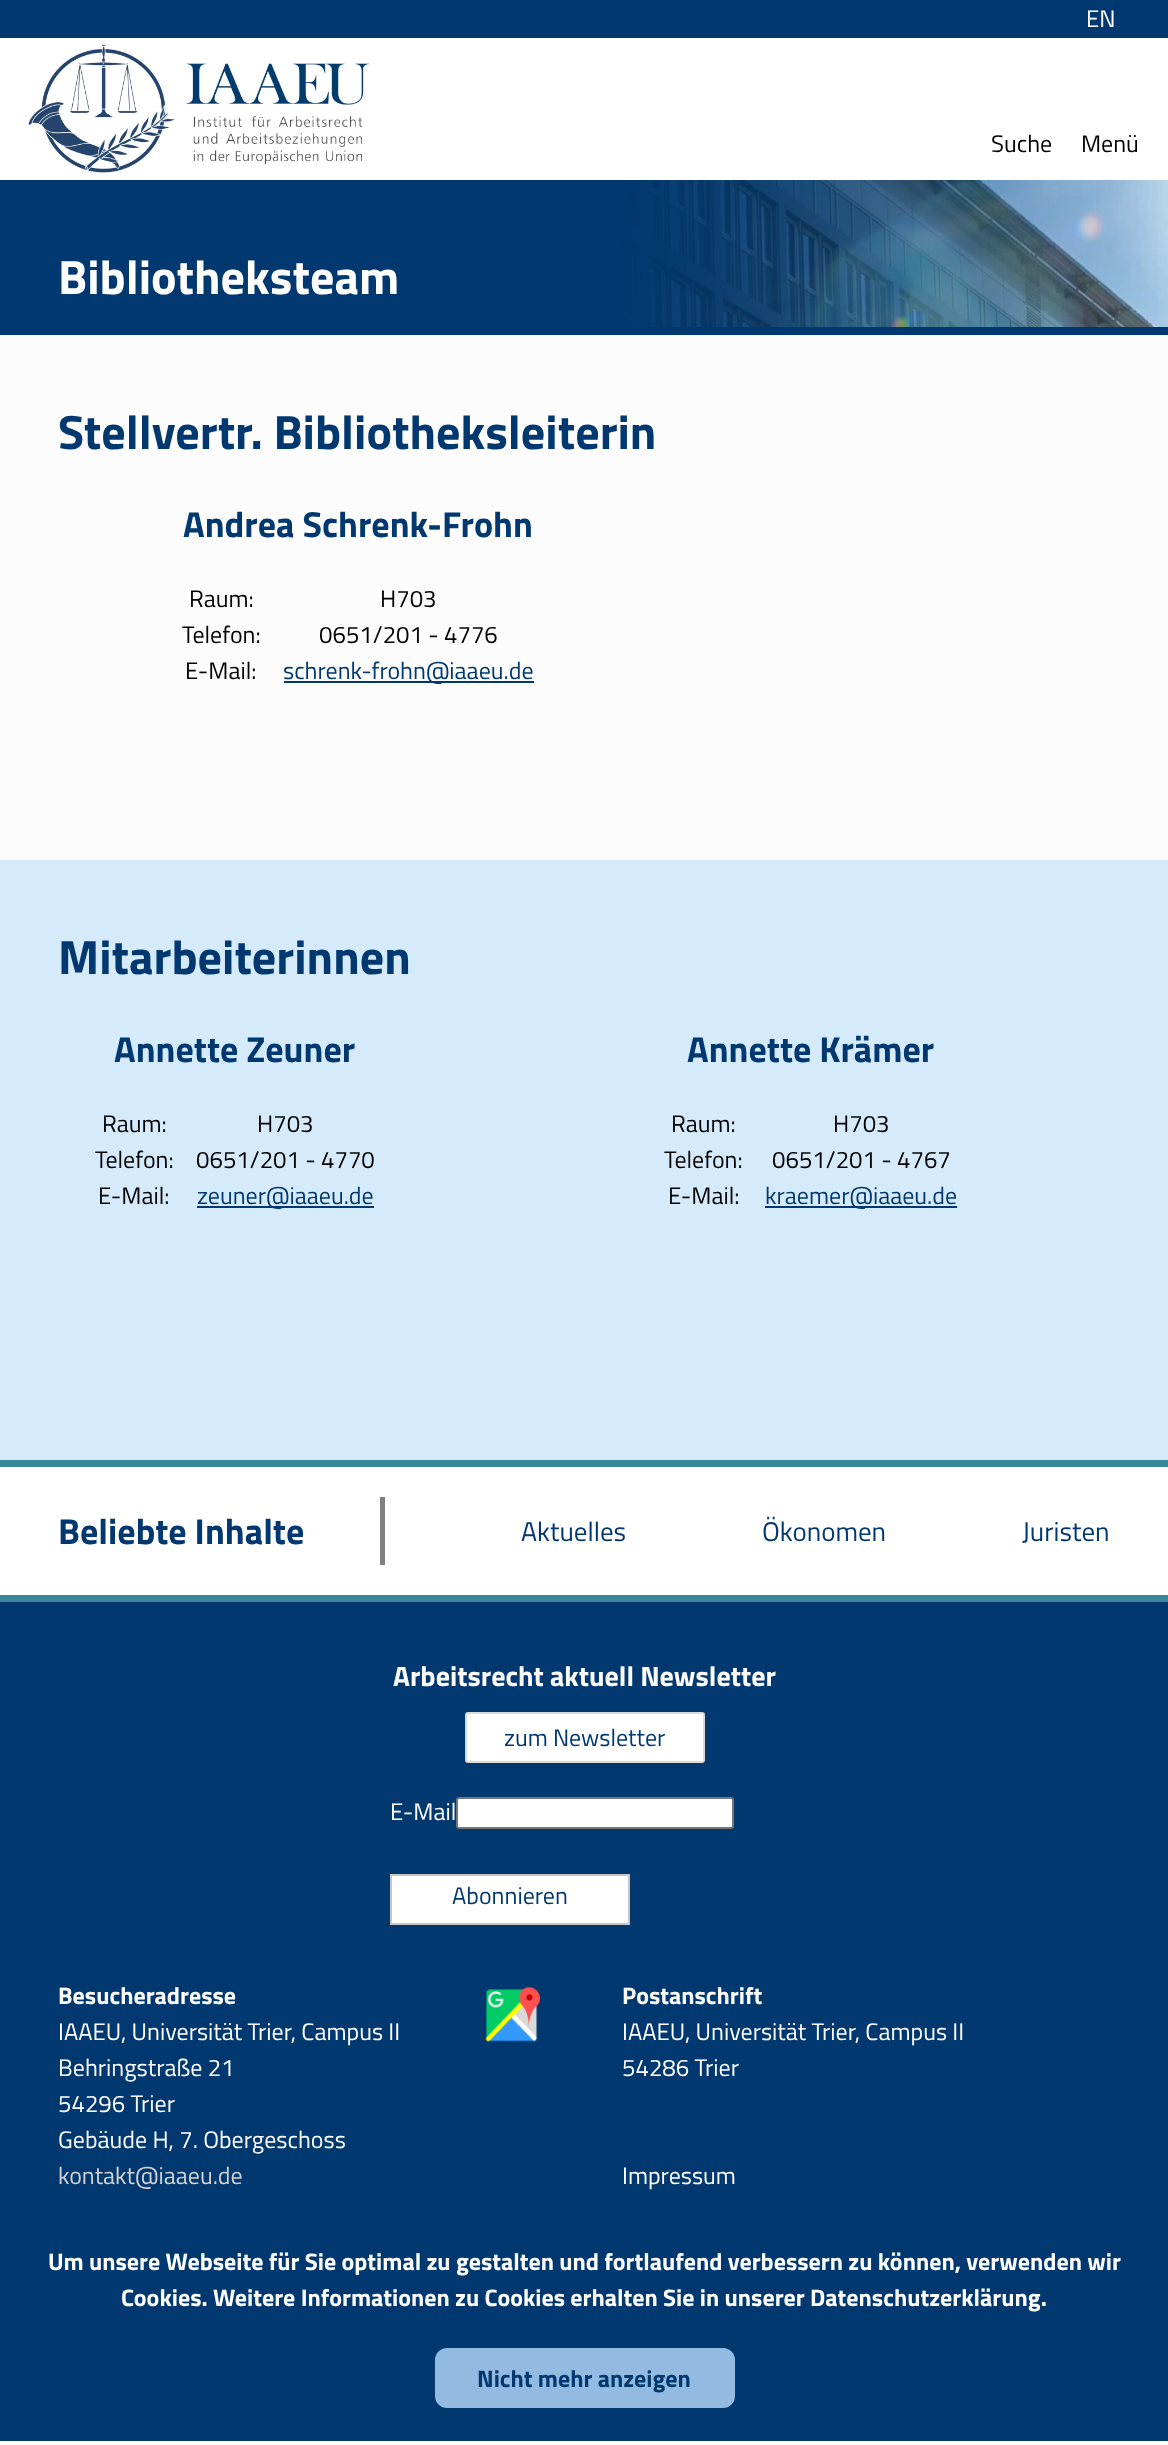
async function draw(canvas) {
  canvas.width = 1168;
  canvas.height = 2445;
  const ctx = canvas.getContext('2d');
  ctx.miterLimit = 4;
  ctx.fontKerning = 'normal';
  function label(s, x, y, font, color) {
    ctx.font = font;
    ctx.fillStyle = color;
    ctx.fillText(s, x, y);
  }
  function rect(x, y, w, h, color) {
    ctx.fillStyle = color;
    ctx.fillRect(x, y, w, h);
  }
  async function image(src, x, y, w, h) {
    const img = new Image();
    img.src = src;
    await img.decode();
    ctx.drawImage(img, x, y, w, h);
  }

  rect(0, 0, 1168, 2445, '#fff');
  rect(0, 0, 1168, 38, '#00386f');
  label('EN', 1086, 27, '24px Titillium Web', '#fff');
  await image('assets/img1.png', 28, 45, 341, 128);
  label('Suche', 991, 152, '24px Titillium Web', '#000');
  label('Menü', 1081, 152, '24px Titillium Web', '#000');
  rect(0, 335, 1168, 525, '#fcfcfc');
  await image('assets/img2.png', 0, 180, 1168, 147);
  label('Bibliotheksteam', 58, 294, 'bold 48px Titillium Web', '#fff');
  rect(0, 327, 1168, 8, '#00386f');
  label('Stellvertr. Bibliotheksleiterin', 58, 449, 'bold 48px Titillium Web', '#00386f');
  label('Andrea Schrenk-Frohn', 183, 537, 'bold 36px Titillium Web', '#00386f');
  label('Raum:', 189, 607, '24px Titillium Web', '#000');
  label('H703', 380, 607, '24px Titillium Web', '#000');
  label('Telefon:', 182, 643, '24px Titillium Web', '#000');
  label('0651/201 - 4776', 319, 643, '24px Titillium Web', '#000');
  label('E-Mail:', 185, 679, '24px Titillium Web', '#000');
  rect(284, 681, 250, 2, '#00386f');
  label('schrenk-frohn@iaaeu.de', 283, 679, '24px Titillium Web', '#00386f');
  rect(0, 860, 1168, 600, '#d5ebfb');
  label('Mitarbeiterinnen', 58, 974, 'bold 48px Titillium Web', '#00386f');
  label('Annette Zeuner', 114, 1062, 'bold 36px Titillium Web', '#00386f');
  label('Raum:', 102, 1132, '24px Titillium Web', '#000');
  label('H703', 257, 1132, '24px Titillium Web', '#000');
  label('Telefon:', 95, 1168, '24px Titillium Web', '#000');
  label('0651/201 - 4770', 196, 1168, '24px Titillium Web', '#000');
  label('E-Mail:', 98, 1204, '24px Titillium Web', '#000');
  rect(197, 1206, 177, 2, '#00386f');
  label('zeuner@iaaeu.de', 197, 1204, '24px Titillium Web', '#00386f');
  label('Annette Krämer', 687, 1062, 'bold 36px Titillium Web', '#00386f');
  label('Raum:', 671, 1132, '24px Titillium Web', '#000');
  label('H703', 833, 1132, '24px Titillium Web', '#000');
  label('Telefon:', 664, 1168, '24px Titillium Web', '#000');
  label('0651/201 - 4767', 772, 1168, '24px Titillium Web', '#000');
  label('E-Mail:', 668, 1204, '24px Titillium Web', '#000');
  rect(765, 1206, 192, 2, '#00386f');
  label('kraemer@iaaeu.de', 765, 1204, '24px Titillium Web', '#00386f');
  rect(0, 1460, 1168, 7, '#38889a');
  label('Beliebte Inhalte', 58, 1544, 'bold 36px Titillium Web', '#00386f');
  rect(380, 1497, 5, 68, '#808080');
  label('Aktuelles', 521, 1541, '27px Titillium Web', '#00386f');
  label('Ökonomen', 762, 1541, '27px Titillium Web', '#00386f');
  label('Juristen', 1022, 1541, '27px Titillium Web', '#00386f');
  rect(0, 1595, 1168, 7, '#38889a');
  rect(0, 1602, 1168, 839, '#00386f');
  label('Arbeitsrecht aktuell Newsletter', 393, 1686, 'bold 28.1px Titillium Web', '#fff');
  ctx.beginPath();
  ctx.roundRect(466, 1713, 238, 49, 2);
  ctx.fill();
  ctx.strokeStyle = '#dadada';
  ctx.lineWidth = 2;
  ctx.stroke();
  label('zum Newsletter', 504, 1746, '24px Titillium Web', '#00386f');
  label('E-Mail', 390, 1820, '24px Titillium Web', '#fff');
  ctx.beginPath();
  ctx.roundRect(457, 1798, 276, 30, 2);
  ctx.fill();
  ctx.strokeStyle = '#767676';
  ctx.stroke();
  ctx.beginPath();
  ctx.rect(391, 1875, 238, 49);
  ctx.fill();
  ctx.strokeStyle = '#c6c6c6';
  ctx.stroke();
  label('Abonnieren', 452, 1904, '24px Titillium Web', '#00386f');
  label('Besucheradresse', 58, 2004, 'bold 24px Titillium Web', '#fff');
  await image('assets/img3.png', 485, 1986, 55, 56);
  label('IAAEU, Universität Trier, Campus II', 58, 2040, '24px Titillium Web', '#fff');
  label('Behringstraße 21', 58, 2076, '24px Titillium Web', '#fff');
  label('54296 Trier', 58, 2112, '24px Titillium Web', '#fff');
  label('Gebäude H, 7. Obergeschoss', 58, 2148, '24px Titillium Web', '#fff');
  label('kontakt@iaaeu.de', 58, 2184, '24px Titillium Web', '#d3d3d3');
  label('Postanschrift', 622, 2004, 'bold 24px Titillium Web', '#fff');
  label('IAAEU, Universität Trier, Campus II', 622, 2040, '24px Titillium Web', '#fff');
  label('54286 Trier', 622, 2076, '24px Titillium Web', '#fff');
  label('Impressum', 622, 2184, '24px Titillium Web', '#fff');
  label('Um unsere Webseite für Sie optimal zu gestalten und fortlaufend verbessern zu können, verwenden wir', 48, 2270, 'bold 24px Titillium Web', '#fff');
  label('Cookies. Weitere Informationen zu Cookies erhalten Sie in unserer Datenschutzerklärung.', 121, 2306, 'bold 24px Titillium Web', '#fff');
  ctx.fillStyle = '#93bbe2';
  ctx.beginPath();
  ctx.roundRect(433.5, 2346.5, 303, 63, 13.5);
  ctx.fill();
  ctx.strokeStyle = '#00386f';
  ctx.lineWidth = 3;
  ctx.stroke();
  label('Nicht mehr anzeigen', 477, 2387, 'bold 24px Titillium Web', '#00386f');
}

draw(document.querySelector('canvas'));
